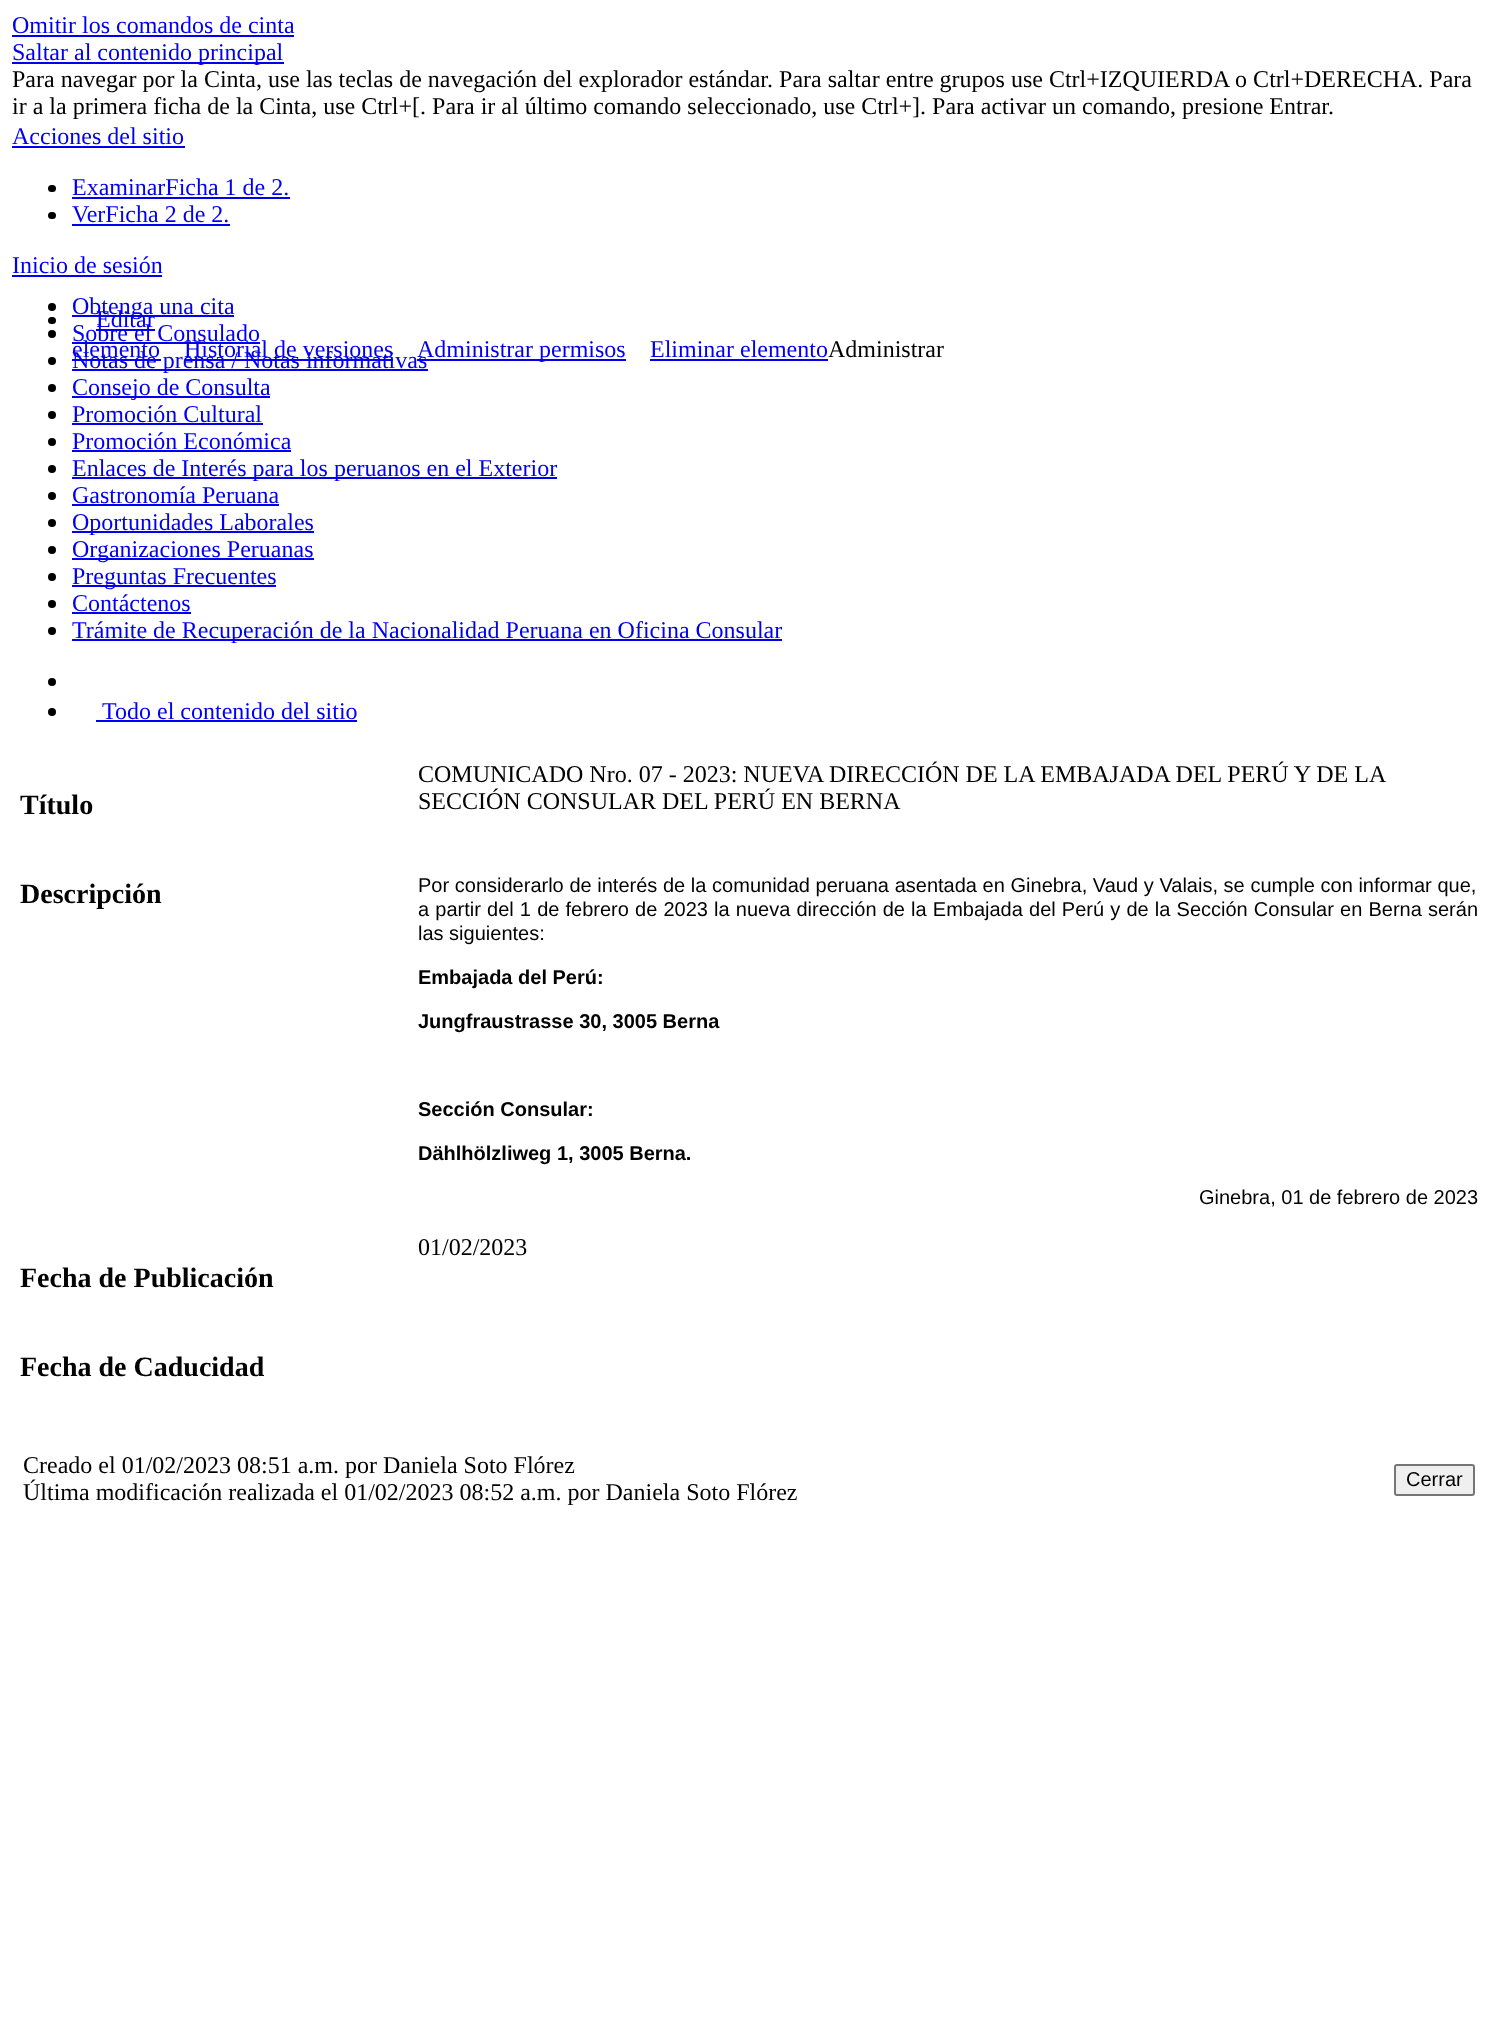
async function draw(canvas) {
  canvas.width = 1489;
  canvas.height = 2029;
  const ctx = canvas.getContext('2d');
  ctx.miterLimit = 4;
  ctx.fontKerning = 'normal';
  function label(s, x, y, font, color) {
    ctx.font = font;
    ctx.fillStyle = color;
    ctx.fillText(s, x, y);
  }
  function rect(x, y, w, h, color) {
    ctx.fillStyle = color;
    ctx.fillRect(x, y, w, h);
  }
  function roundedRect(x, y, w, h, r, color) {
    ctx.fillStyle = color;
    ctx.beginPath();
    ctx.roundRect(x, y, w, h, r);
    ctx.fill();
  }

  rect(0, 0, 1489, 2029, '#fff');
  label('Omitir los comandos de cinta', 12, 33, '24px Liberation Serif', '#00e');
  rect(12, 35, 282, 2, '#00e');
  rect(12, 62, 272, 2, '#00e');
  label('Saltar al contenido principal', 12, 60, '24px Liberation Serif', '#00e');
  label('Para navegar por la Cinta, use las teclas de navegación del explorador estándar. Para saltar entre grupos use Ctrl+IZQUIERDA o Ctrl+DERECHA. Para', 12, 87, '24px Liberation Serif', '#000');
  label('ir a la primera ficha de la Cinta, use Ctrl+[. Para ir al último comando seleccionado, use Ctrl+]. Para activar un comando, presione Entrar.', 12, 114, '24px Liberation Serif', '#000');
  label('Acciones del sitio', 12, 144, '24px Liberation Serif', '#00e');
  rect(12, 146, 173, 2, '#00e');
  roundedRect(48, 185, 8, 7, 3.5, '#000');
  label('ExaminarFicha 1 de 2.', 72, 195, '24px Liberation Serif', '#00e');
  rect(72, 197, 218, 2, '#00e');
  roundedRect(48, 212, 8, 7, 3.5, '#000');
  label('VerFicha 2 de 2.', 72, 222, '24px Liberation Serif', '#00e');
  rect(72, 224, 158, 2, '#00e');
  label('Inicio de sesión', 12, 273, '24px Liberation Serif', '#00e');
  rect(12, 275, 150, 2, '#00e');
  roundedRect(48, 317, 8, 7, 3.5, '#000');
  label('Editar', 96, 327, '24px Liberation Serif', '#00e');
  rect(96, 329, 59, 2, '#00e');
  label('elemento', 72, 357, '24px Liberation Serif', '#00e');
  rect(72, 359, 89, 2, '#00e');
  label('Historial de versiones', 184, 357, '24px Liberation Serif', '#00e');
  rect(185, 359, 208, 2, '#00e');
  rect(417, 359, 209, 2, '#00e');
  label('Administrar permisos', 417, 357, '24px Liberation Serif', '#00e');
  label('Eliminar elemento', 650, 357, '24px Liberation Serif', '#00e');
  rect(650, 359, 178, 2, '#00e');
  label('Administrar', 828, 357, '24px Liberation Serif', '#000');
  ctx.beginPath();
  ctx.arc(52, 307, 4, 0, 2 * Math.PI);
  ctx.fill();
  rect(72, 315, 162, 2, '#00e');
  label('Obtenga una cita', 72, 314, '24px Liberation Serif', '#00e');
  ctx.fillStyle = '#000';
  ctx.beginPath();
  ctx.arc(52, 334, 4, 0, 2 * Math.PI);
  ctx.fill();
  label('Sobre el Consulado', 72, 341, '24px Liberation Serif', '#00e');
  rect(72, 342, 188, 2, '#00e');
  ctx.fillStyle = '#000';
  ctx.beginPath();
  ctx.arc(52, 361, 4, 0, 2 * Math.PI);
  ctx.fill();
  rect(72, 369, 356, 2, '#00e');
  label('Notas de prensa / Notas informativas', 72, 368, '24px Liberation Serif', '#00e');
  ctx.fillStyle = '#000';
  ctx.beginPath();
  ctx.arc(52, 388, 4, 0, 2 * Math.PI);
  ctx.fill();
  rect(72, 396, 198, 2, '#00e');
  label('Consejo de Consulta', 72, 395, '24px Liberation Serif', '#00e');
  ctx.fillStyle = '#000';
  ctx.beginPath();
  ctx.arc(52, 415, 4, 0, 2 * Math.PI);
  ctx.fill();
  label('Promoción Cultural', 72, 422, '24px Liberation Serif', '#00e');
  rect(72, 423, 191, 2, '#00e');
  ctx.fillStyle = '#000';
  ctx.beginPath();
  ctx.arc(52, 442, 4, 0, 2 * Math.PI);
  ctx.fill();
  label('Promoción Económica', 72, 449, '24px Liberation Serif', '#00e');
  rect(72, 450, 219, 2, '#00e');
  ctx.fillStyle = '#000';
  ctx.beginPath();
  ctx.arc(52, 469, 4, 0, 2 * Math.PI);
  ctx.fill();
  rect(72, 477, 485, 2, '#00e');
  label('Enlaces de Interés para los peruanos en el Exterior', 72, 476, '24px Liberation Serif', '#00e');
  ctx.fillStyle = '#000';
  ctx.beginPath();
  ctx.arc(52, 496, 4, 0, 2 * Math.PI);
  ctx.fill();
  label('Gastronomía Peruana', 72, 503, '24px Liberation Serif', '#00e');
  rect(72, 504, 207, 2, '#00e');
  ctx.fillStyle = '#000';
  ctx.beginPath();
  ctx.arc(52, 523, 4, 0, 2 * Math.PI);
  ctx.fill();
  rect(72, 531, 242, 2, '#00e');
  label('Oportunidades Laborales', 72, 530, '24px Liberation Serif', '#00e');
  ctx.fillStyle = '#000';
  ctx.beginPath();
  ctx.arc(52, 550, 4, 0, 2 * Math.PI);
  ctx.fill();
  rect(72, 558, 242, 2, '#00e');
  label('Organizaciones Peruanas', 72, 557, '24px Liberation Serif', '#00e');
  ctx.fillStyle = '#000';
  ctx.beginPath();
  ctx.arc(52, 577, 4, 0, 2 * Math.PI);
  ctx.fill();
  rect(72, 585, 204, 2, '#00e');
  label('Preguntas Frecuentes', 72, 584, '24px Liberation Serif', '#00e');
  ctx.fillStyle = '#000';
  ctx.beginPath();
  ctx.arc(52, 604, 4, 0, 2 * Math.PI);
  ctx.fill();
  label('Contáctenos', 72, 611, '24px Liberation Serif', '#00e');
  rect(72, 612, 119, 2, '#00e');
  ctx.fillStyle = '#000';
  ctx.beginPath();
  ctx.arc(52, 631, 4, 0, 2 * Math.PI);
  ctx.fill();
  rect(72, 639, 710, 2, '#00e');
  label('Trámite de Recuperación de la Nacionalidad Peruana en Oficina Consular', 72, 638, '24px Liberation Serif', '#00e');
  ctx.fillStyle = '#000';
  ctx.beginPath();
  ctx.arc(52, 682, 4, 0, 2 * Math.PI);
  ctx.fill();
  ctx.beginPath();
  ctx.arc(52, 712, 4, 0, 2 * Math.PI);
  ctx.fill();
  label('Todo el contenido del sitio', 102, 719, '24px Liberation Serif', '#00e');
  rect(96, 720, 261, 2, '#00e');
  label('Título', 20, 814, 'bold 28px Liberation Serif', '#000');
  label('COMUNICADO Nro. 07 - 2023: NUEVA DIRECCIÓN DE LA EMBAJADA DEL PERÚ Y DE LA', 418, 782, '24px Liberation Serif', '#000');
  label('SECCIÓN CONSULAR DEL PERÚ EN BERNA', 418, 809, '24px Liberation Serif', '#000');
  label('Descripción', 20, 903, 'bold 28px Liberation Serif', '#000');
  ctx.wordSpacing = '0.1px';
  label('Por considerarlo de interés de la comunidad peruana asentada en Ginebra, Vaud y Valais, se cumple con informar que,', 418, 892, '20px Liberation Sans', '#000');
  ctx.wordSpacing = '0.6px';
  label('a partir del 1 de febrero de 2023 la nueva dirección de la Embajada del Perú y de la Sección Consular en Berna serán', 418, 916, '20px Liberation Sans', '#000');
  ctx.wordSpacing = '0px';
  label('las siguientes:', 418, 940, '20px Liberation Sans', '#000');
  label('Embajada del Perú:', 418, 984, 'bold 20px Liberation Sans', '#000');
  label('Jungfraustrasse 30, 3005 Berna', 418, 1028, 'bold 20px Liberation Sans', '#000');
  label('Sección Consular:', 418, 1116, 'bold 20px Liberation Sans', '#000');
  label('Dählhölzliweg 1, 3005 Berna.', 418, 1160, 'bold 20px Liberation Sans', '#000');
  label('Ginebra, 01 de febrero de 2023', 1199, 1204, '20px Liberation Sans', '#000');
  label('01/02/2023', 418, 1255, '24px Liberation Serif', '#000');
  label('Fecha de Publicación', 20, 1287, 'bold 28px Liberation Serif', '#000');
  label('Fecha de Caducidad', 20, 1376, 'bold 28px Liberation Serif', '#000');
  label('Creado el 01/02/2023 08:51 a.m. por Daniela Soto Flórez', 23, 1473, '24px Liberation Serif', '#000');
  label('Última modificación realizada el 01/02/2023 08:52 a.m. por Daniela Soto Flórez', 23, 1500, '24px Liberation Serif', '#000');
  ctx.fillStyle = '#efefef';
  ctx.beginPath();
  ctx.roundRect(1395, 1465, 79, 30, 2);
  ctx.fill();
  ctx.strokeStyle = '#767676';
  ctx.lineWidth = 2;
  ctx.stroke();
  label('Cerrar', 1406, 1486, '20px Liberation Sans', '#000');
}

draw(document.querySelector('canvas'));
